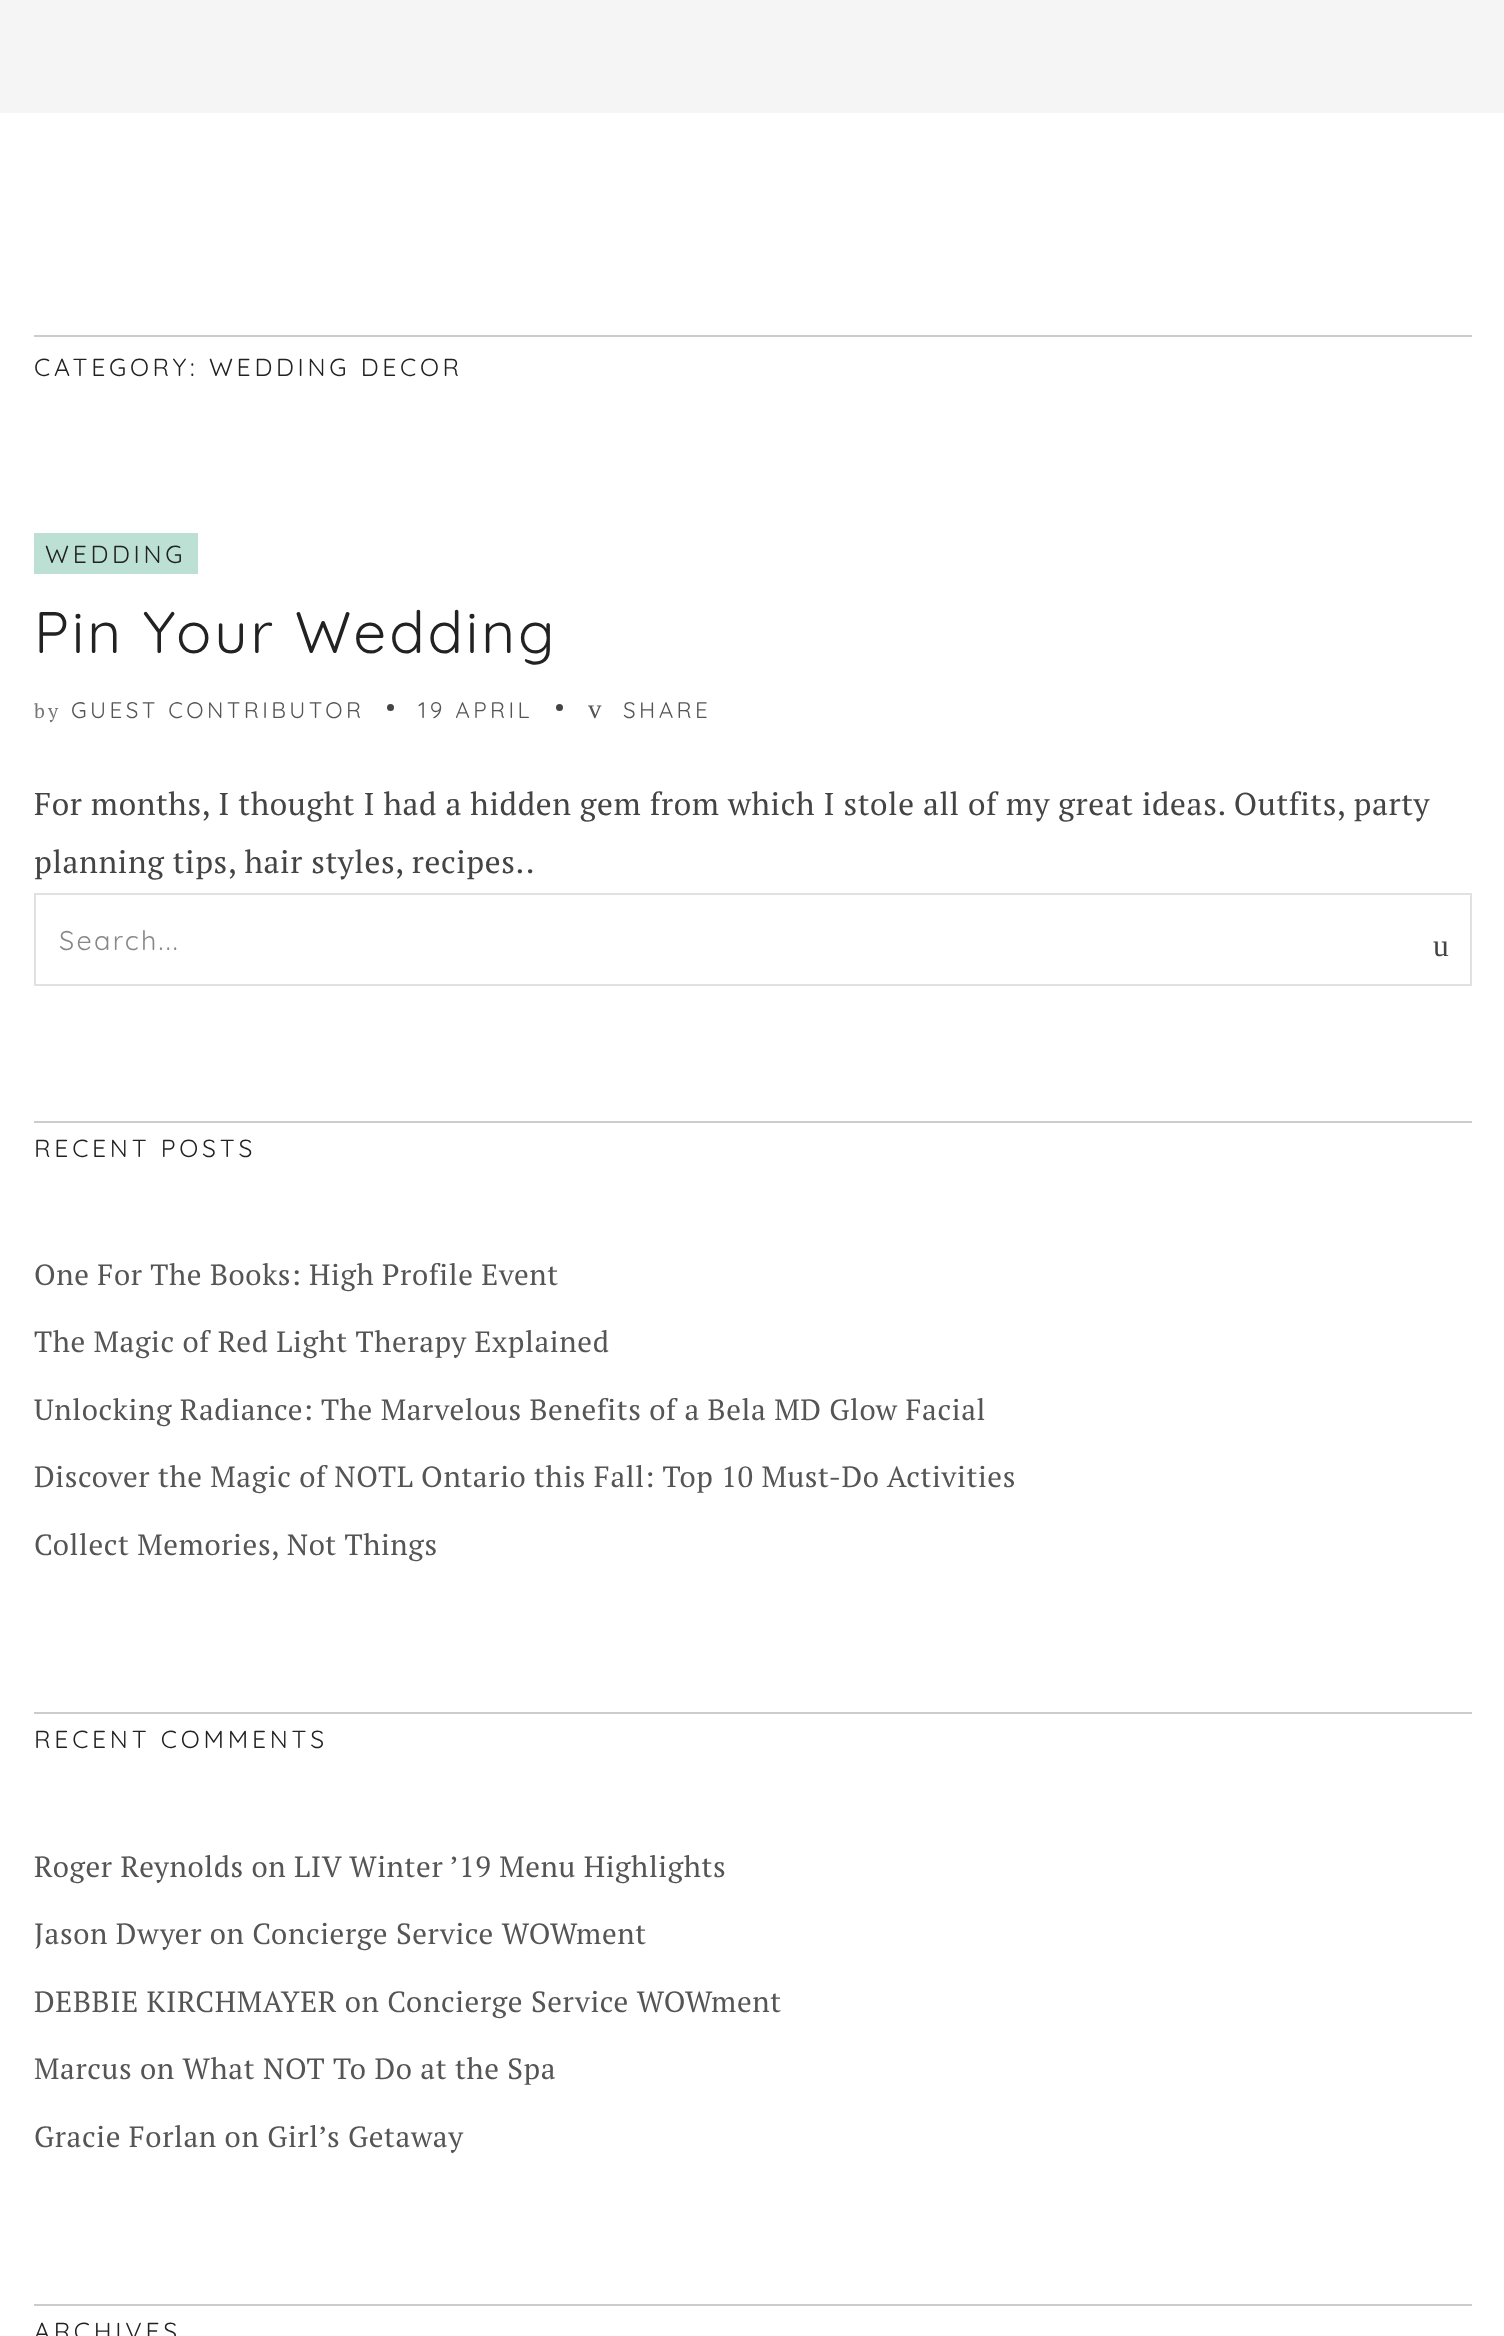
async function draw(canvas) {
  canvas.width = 1504;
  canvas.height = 2336;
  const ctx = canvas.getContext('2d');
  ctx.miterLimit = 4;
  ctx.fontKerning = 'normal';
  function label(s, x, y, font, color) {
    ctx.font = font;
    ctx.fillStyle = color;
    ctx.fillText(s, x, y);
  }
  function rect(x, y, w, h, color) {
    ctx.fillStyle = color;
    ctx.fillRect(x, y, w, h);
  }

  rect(0, 0, 1504, 2336, '#fff');
  rect(0, 0, 1504, 113, '#f5f5f5');
  rect(34, 335, 1438, 2, '#ccc');
  ctx.letterSpacing = '3.75px';
  label('CATEGORY: WEDDING DECOR', 34, 376, '24.75px Quicksand', '#222');
  rect(34, 533, 164, 41, '#bce0d3');
  label('WEDDING', 45, 563, '24.75px Quicksand', '#222');
  ctx.letterSpacing = '2.9px';
  label('Pin Your Wedding', 34, 653, '58.5px Quicksand', '#222');
  ctx.letterSpacing = '3.4px';
  label('by', 34, 718, '20px PT Serif', '#777');
  label('GUEST CONTRIBUTOR', 71, 718, '22.5px Quicksand', '#555');
  ctx.fillStyle = '#444';
  ctx.beginPath();
  ctx.arc(390.5, 707.5, 3.5, 0, 2 * Math.PI);
  ctx.fill();
  label('19 APRIL', 418, 718, '22.5px Quicksand', '#555');
  ctx.fillStyle = '#444';
  ctx.beginPath();
  ctx.arc(559.5, 707.5, 3.5, 0, 2 * Math.PI);
  ctx.fill();
  label('v', 588, 718, '27px Liberation Serif', '#555');
  label('SHARE', 623, 718, '22.5px Quicksand', '#555');
  ctx.letterSpacing = '0.63px';
  label('For months, I thought I had a hidden gem from which I stole all of my great ideas. Outfits, party', 34, 815, '31.5px PT Serif', '#444');
  label('planning tips, hair styles, recipes..', 34, 873, '31.5px PT Serif', '#444');
  ctx.strokeStyle = '#e1e1e1';
  ctx.lineWidth = 2;
  ctx.strokeRect(35, 894, 1436, 91);
  ctx.letterSpacing = '2.25px';
  label('Search...', 59, 950, '27px Quicksand', '#888');
  ctx.letterSpacing = '0.63px';
  label('u', 1433, 956, '31.5px Liberation Serif', '#444');
  rect(34, 1121, 1438, 2, '#ccc');
  ctx.letterSpacing = '3.75px';
  label('RECENT POSTS', 34, 1157, '24.75px Quicksand', '#222');
  ctx.letterSpacing = '0.63px';
  label('One For The Books: High Profile Event', 34, 1285, '29.25px PT Serif', '#555');
  label('The Magic of Red Light Therapy Explained', 34, 1352, '29.25px PT Serif', '#555');
  label('Unlocking Radiance: The Marvelous Benefits of a Bela MD Glow Facial', 34, 1420, '29.25px PT Serif', '#555');
  label('Discover the Magic of NOTL Ontario this Fall: Top 10 Must-Do Activities', 34, 1487, '29.25px PT Serif', '#555');
  label('Collect Memories, Not Things', 34, 1555, '29.25px PT Serif', '#555');
  rect(34, 1712, 1438, 2, '#ccc');
  ctx.letterSpacing = '3.75px';
  label('RECENT COMMENTS', 34, 1748, '24.75px Quicksand', '#222');
  ctx.letterSpacing = '0.63px';
  label('Roger Reynolds on LIV Winter ’19 Menu Highlights', 34, 1877, '29.25px PT Serif', '#555');
  label('Jason Dwyer on Concierge Service WOWment', 34, 1944, '29.25px PT Serif', '#555');
  label('DEBBIE KIRCHMAYER on Concierge Service WOWment', 34, 2012, '29.25px PT Serif', '#555');
  label('Marcus on What NOT To Do at the Spa', 34, 2079, '29.25px PT Serif', '#555');
  label('Gracie Forlan on Girl’s Getaway', 34, 2147, '29.25px PT Serif', '#555');
  rect(34, 2304, 1438, 2, '#ccc');
  ctx.letterSpacing = '3.75px';
  label('ARCHIVES', 34, 2340, '24.75px Quicksand', '#222');
}

draw(document.querySelector('canvas'));
